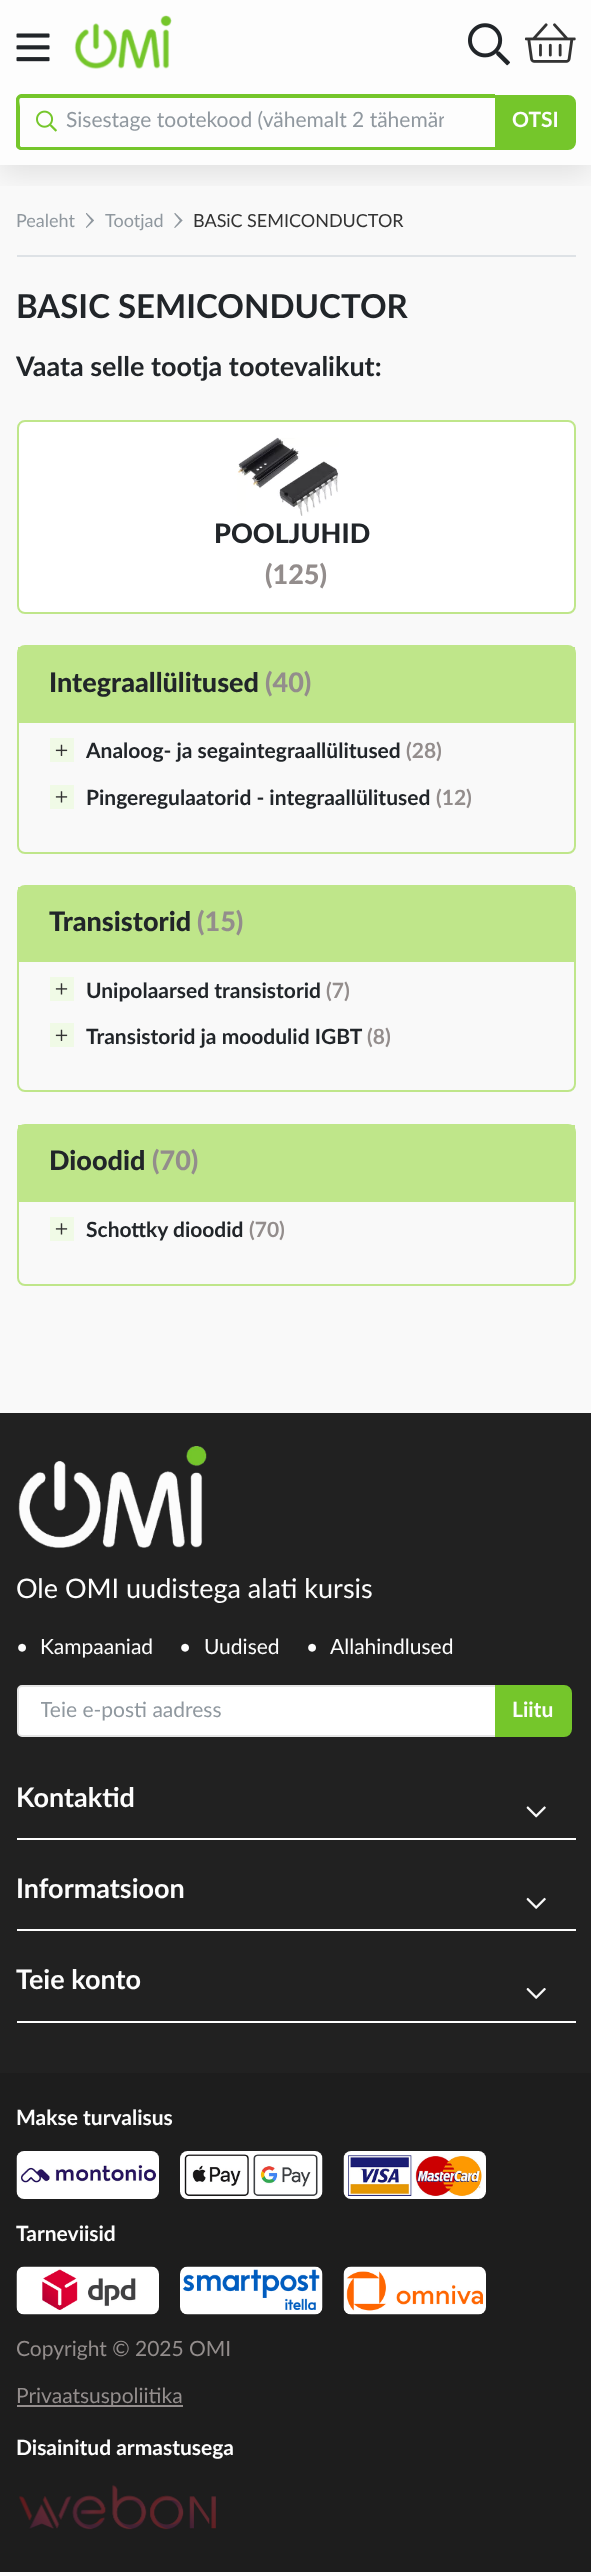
async function draw(canvas) {
  canvas.width = 591;
  canvas.height = 2572;
  const ctx = canvas.getContext('2d');
  ctx.miterLimit = 4;
  ctx.fontKerning = 'normal';
  function label(s, x, y, font, color) {
    ctx.font = font;
    ctx.fillStyle = color;
    ctx.fillText(s, x, y);
  }
  function rect(x, y, w, h, color) {
    ctx.fillStyle = color;
    ctx.fillRect(x, y, w, h);
  }
  async function image(src, x, y, w, h) {
    const img = new Image();
    img.src = src;
    await img.decode();
    ctx.drawImage(img, x, y, w, h);
  }
  let path;

  rect(0, 0, 591, 2572, '#f9f9f9');
  rect(0, 0, 591, 165, '#fdfdfd');
  await image('assets/img6.png', 86, 213, 8, 15);
  await image('assets/img7.png', 174, 213, 9, 15);
  ctx.save();
  ctx.beginPath();
  ctx.rect(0, 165, 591, 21);
  ctx.clip();
  ctx.fillStyle = '#0101011a';
  ctx.filter = 'blur(15px)';
  ctx.beginPath();
  ctx.rect(0, 8, 591, 165);
  ctx.fill();
  ctx.filter = 'none';
  ctx.restore();
  await image('assets/img1.png', 16, 33, 34, 29);
  await image('assets/img2.png', 74, 15, 98, 54);
  await image('assets/img3.png', 468, 23, 42, 43);
  await image('assets/img4.png', 525, 23, 51, 40);
  ctx.fillStyle = '#75c62b';
  path = new Path2D('M21 94H495V150H21C19 150 16 148 16 146V99C16 97 19 94 21 94ZM21 98H495V147H21L20 146V107C20 104 18 98 21 98Z');
  ctx.fill(path, 'evenodd');
  await image('assets/img5.png', 36, 110, 21, 22);
  ctx.save();
  ctx.beginPath();
  ctx.rect(66, 110, 378, 25);
  ctx.clip();
  label('Sisestage tootekood (vähemalt 2 tähemär', 66, 127, '21px Lato', '#90989f');
  ctx.restore();
  ctx.beginPath();
  ctx.roundRect(496, 96, 79, 53, [0, 7, 7, 0]);
  ctx.fill();
  ctx.strokeStyle = '#75c62b';
  ctx.lineWidth = 2;
  ctx.stroke();
  label('OTSI', 512, 127, 'bold 21px Lato', '#fdfdfd');
  rect(17, 255, 559, 2, '#dee2e6');
  label('Pealeht', 16, 227, '18px Lato', '#90989f');
  label('Tootjad', 105, 227, '18px Lato', '#90989f');
  label('BASiC SEMICONDUCTOR', 193, 227, '18px Lato', '#333');
  label('BASIC SEMICONDUCTOR', 16, 318, 'bold 33px Lato', '#212529');
  label('Vaata selle tootja tootevalikut:', 16, 376, 'bold 27px Lato', '#212529');
  ctx.fillStyle = '#fff';
  ctx.beginPath();
  ctx.roundRect(18, 421, 557, 192, 7);
  ctx.fill();
  ctx.strokeStyle = '#bfe68a';
  ctx.stroke();
  await image('assets/img8.png', 237, 437, 102, 79);
  label('POOLJUHID', 214, 543, '900 27px Lato', '#212529');
  label('(125)', 265, 584, '900 27px Lato', '#938d8c');
  ctx.beginPath();
  ctx.roundRect(18, 646, 557, 207, 7);
  ctx.stroke();
  rect(18, 647, 557, 76, '#bfe68a');
  label('Integraallülitused', 49, 692, '900 27px Lato', '#212529');
  label('(40)', 265, 692, '900 27px Lato', '#938d8c');
  rect(50, 738, 24, 24, '#f0fae6');
  await image('assets/img9.png', 55, 744, 13, 12);
  label('Analoog- ja segaintegraallülitused', 86, 758, 'bold 21px Lato', '#212529');
  label('(28)', 406, 758, 'bold 21px Lato', '#938d8c');
  rect(50, 785, 24, 24, '#f0fae6');
  await image('assets/img10.png', 55, 791, 13, 12);
  label('Pingeregulaatorid - integraallülitused', 86, 805, 'bold 21px Lato', '#212529');
  label('(12)', 436, 805, 'bold 21px Lato', '#938d8c');
  ctx.beginPath();
  ctx.roundRect(18, 886, 557, 205, 7);
  ctx.stroke();
  rect(18, 887, 557, 75, '#bfe68a');
  label('Transistorid', 49, 931, '900 27px Lato', '#212529');
  label('(15)', 197, 931, '900 27px Lato', '#938d8c');
  rect(50, 977, 24, 24, '#f0fae6');
  await image('assets/img10.png', 55, 983, 13, 12);
  label('Unipolaarsed transistorid', 86, 998, 'bold 21px Lato', '#212529');
  label('(7)', 326, 998, 'bold 21px Lato', '#938d8c');
  rect(50, 1023, 24, 24, '#f0fae6');
  await image('assets/img9.png', 55, 1029, 13, 12);
  label('Transistorid ja moodulid IGBT', 86, 1044, 'bold 21px Lato', '#212529');
  label('(8)', 367, 1044, 'bold 21px Lato', '#938d8c');
  ctx.beginPath();
  ctx.roundRect(18, 1125, 557, 160, 7);
  ctx.stroke();
  rect(18, 1125, 557, 77, '#bfe68a');
  label('Dioodid', 49, 1170, '900 27px Lato', '#212529');
  label('(70)', 152, 1170, '900 27px Lato', '#938d8c');
  rect(50, 1217, 24, 24, '#f0fae6');
  await image('assets/img10.png', 55, 1223, 13, 12);
  label('Schottky dioodid', 86, 1237, 'bold 21px Lato', '#212529');
  label('(70)', 249, 1237, 'bold 21px Lato', '#938d8c');
  rect(0, 1413, 591, 660, '#212121');
  await image('assets/img11.png', 18, 1446, 189, 102);
  label('Ole OMI uudistega alati kursis', 16, 1598, '27px Lato', '#fdfdfd');
  label('•', 16, 1654, '21px Lato', '#fdfdfd');
  label('Kampaaniad', 40, 1654, '21px Lato', '#fdfdfd');
  label('•', 179, 1654, '21px Lato', '#fdfdfd');
  label('Uudised', 204, 1654, '21px Lato', '#fdfdfd');
  label('•', 306, 1654, '21px Lato', '#fdfdfd');
  label('Allahindlused', 330, 1654, '21px Lato', '#fdfdfd');
  ctx.fillStyle = '#fff';
  ctx.beginPath();
  ctx.roundRect(18, 1686, 478, 50, [4, 0, 0, 4]);
  ctx.fill();
  ctx.strokeStyle = '#e5e5e5';
  ctx.stroke();
  ctx.save();
  ctx.beginPath();
  ctx.rect(41, 1698, 432, 26);
  ctx.clip();
  label('Teie e-posti aadress', 40, 1717, '21px Lato', '#90989f');
  ctx.restore();
  ctx.fillStyle = '#75c62b';
  ctx.beginPath();
  ctx.roundRect(496, 1686, 75, 50, [0, 7, 7, 0]);
  ctx.fill();
  ctx.strokeStyle = '#75c62b';
  ctx.stroke();
  label('Liitu', 512, 1717, 'bold 21px Lato', '#fdfdfd');
  rect(17, 1838, 559, 2, '#fdfdfd');
  label('Kontaktid', 16, 1807, 'bold 27px Lato', '#fdfdfd');
  await image('assets/img12.png', 526, 1806, 20, 12);
  rect(17, 1929, 559, 2, '#fdfdfd');
  label('Informatsioon', 16, 1898, 'bold 27px Lato', '#fdfdfd');
  await image('assets/img13.png', 526, 1897, 20, 12);
  rect(17, 2021, 559, 2, '#fdfdfd');
  label('Teie konto', 16, 1989, 'bold 27px Lato', '#fdfdfd');
  await image('assets/img14.png', 526, 1988, 20, 11);
  rect(0, 2073, 591, 499, '#1d1d1d');
  label('Makse turvalisus', 16, 2125, 'bold 21px Lato', '#fdfdfd');
  await image('assets/img15.png', 16, 2151, 143, 48);
  await image('assets/img16.png', 180, 2151, 143, 48);
  await image('assets/img17.png', 343, 2151, 143, 48);
  label('Tarneviisid', 16, 2241, 'bold 21px Lato', '#fdfdfd');
  await image('assets/img18.png', 16, 2266, 143, 49);
  await image('assets/img19.png', 180, 2266, 143, 49);
  await image('assets/img20.png', 343, 2266, 143, 49);
  label('Copyright © 2025 OMI', 16, 2356, '21px Lato', '#938d8c');
  rect(17, 2405, 166, 2, '#938d8c');
  label('Privaatsuspoliitika', 16, 2403, '21px Lato', '#938d8c');
  label('Disainitud armastusega', 16, 2455, 'bold 21px Lato', '#fdfdfd');
  await image('assets/img21.png', 19, 2485, 197, 45);
}

draw(document.querySelector('canvas'));
